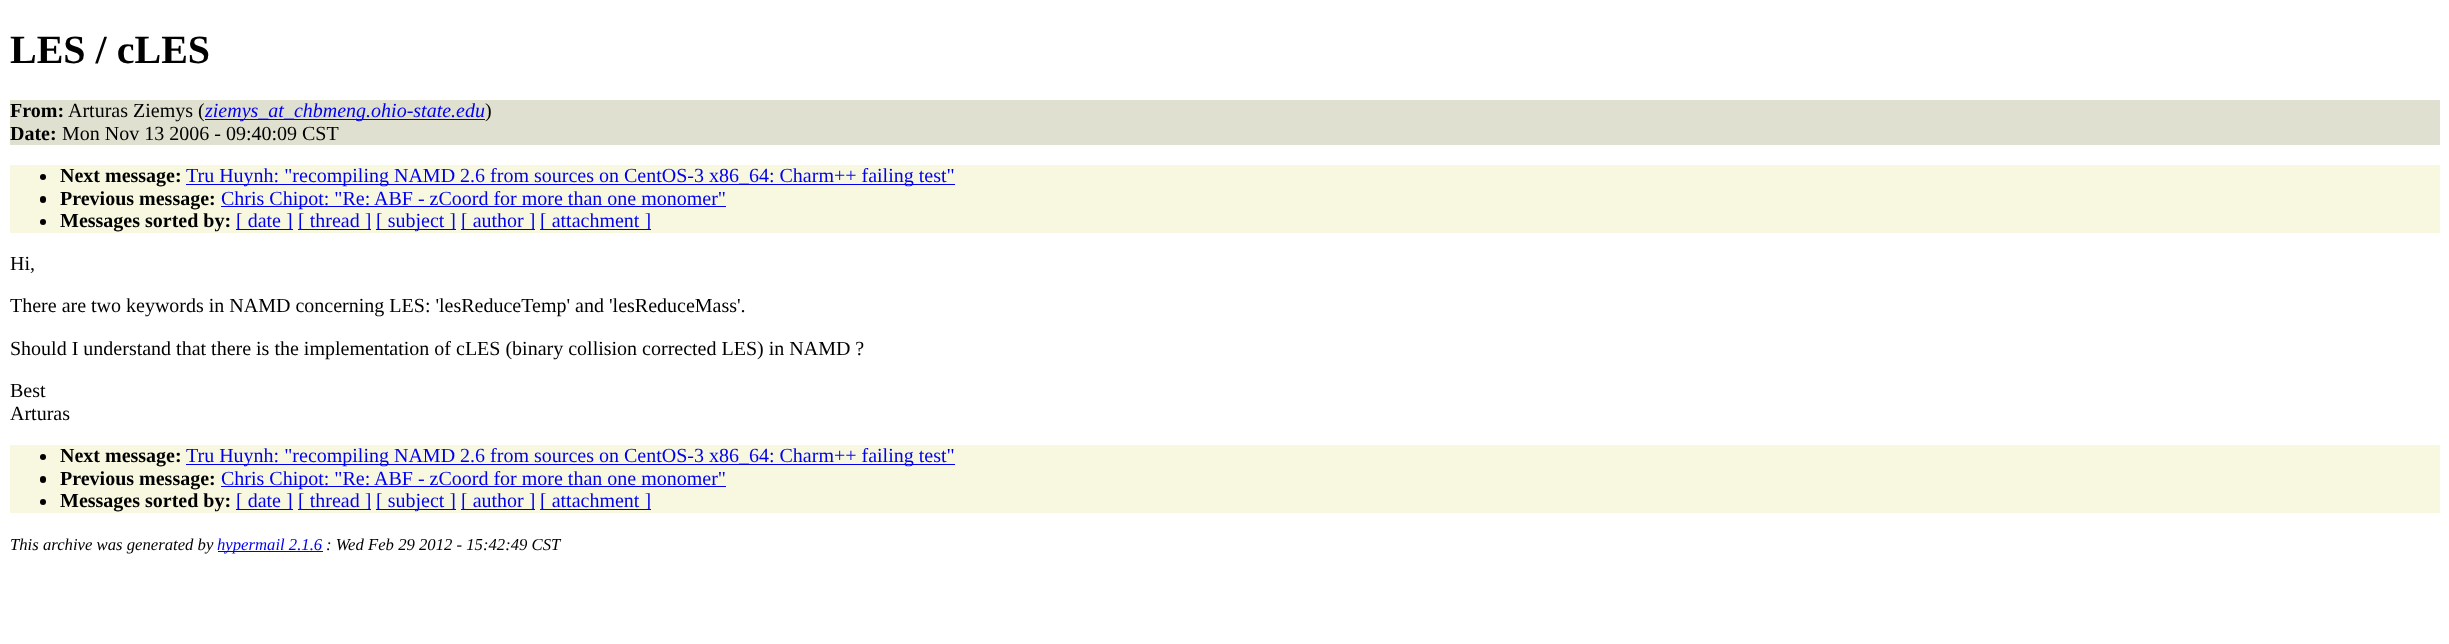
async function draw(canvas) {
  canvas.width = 2449;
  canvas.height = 644;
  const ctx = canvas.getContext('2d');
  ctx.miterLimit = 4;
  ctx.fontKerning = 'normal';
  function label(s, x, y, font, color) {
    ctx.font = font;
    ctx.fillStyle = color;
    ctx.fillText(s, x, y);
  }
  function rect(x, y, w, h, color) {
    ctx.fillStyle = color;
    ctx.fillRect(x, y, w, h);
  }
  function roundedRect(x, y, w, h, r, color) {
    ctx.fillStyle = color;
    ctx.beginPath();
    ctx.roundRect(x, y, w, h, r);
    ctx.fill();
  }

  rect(0, 0, 2449, 644, '#fff');
  label('LES / cLES', 10, 63, 'bold 40px Liberation Serif', '#000');
  rect(10, 100, 2430, 45, '#e0e0d0');
  label('From:', 10, 117, 'bold 20px Liberation Serif', '#000');
  label('Arturas Ziemys (', 68, 117, '20px Liberation Serif', '#000');
  rect(205, 119, 280, 1, '#00e');
  label('ziemys_at_chbmeng.ohio-state.edu', 205, 117, 'italic 20px Liberation Serif', '#00e');
  label(')', 485, 117, '20px Liberation Serif', '#000');
  label('Date:', 10, 140, 'bold 20px Liberation Serif', '#000');
  label('Mon Nov 13 2006 - 09:40:09 CST', 62, 140, '20px Liberation Serif', '#000');
  rect(10, 165, 2430, 68, '#f8f8e0');
  ctx.fillStyle = '#000';
  ctx.beginPath();
  ctx.arc(43, 177, 3, 0, 2 * Math.PI);
  ctx.fill();
  label('Next message:', 60, 182, 'bold 20px Liberation Serif', '#000');
  rect(186, 184, 769, 1, '#00e');
  label('Tru Huynh: "recompiling NAMD 2.6 from sources on CentOS-3 x86_64: Charm++ failing test"', 186, 182, '20px Liberation Serif', '#00e');
  roundedRect(40, 196, 6, 7, 3, '#000');
  label('Previous message:', 60, 205, 'bold 20px Liberation Serif', '#000');
  rect(221, 206, 505, 1, '#00e');
  label('Chris Chipot: "Re:', 221, 205, '20px Liberation Serif', '#00e');
  label('ABF - zCoord for more than one monomer"', 374, 205, '20px Liberation Serif', '#00e');
  ctx.fillStyle = '#000';
  ctx.beginPath();
  ctx.arc(43, 222, 3, 0, 2 * Math.PI);
  ctx.fill();
  label('Messages sorted by:', 60, 227, 'bold 20px Liberation Serif', '#000');
  rect(236, 229, 57, 1, '#00e');
  label('[ date ]', 236, 227, '20px Liberation Serif', '#00e');
  rect(298, 229, 73, 1, '#00e');
  label('[ thread ]', 298, 227, '20px Liberation Serif', '#00e');
  rect(376, 229, 80, 1, '#00e');
  label('[ subject ]', 376, 227, '20px Liberation Serif', '#00e');
  rect(461, 229, 74, 1, '#00e');
  label('[ author ]', 461, 227, '20px Liberation Serif', '#00e');
  rect(540, 229, 111, 1, '#00e');
  label('[ attachment ]', 540, 227, '20px Liberation Serif', '#00e');
  label('Hi,', 10, 270, '20px Liberation Serif', '#000');
  label('There are two keywords in NAMD concerning LES: \'lesReduceTemp\' and \'lesReduceMass\'.', 10, 312, '20px Liberation Serif', '#000');
  label('Should I understand that there is the implementation of cLES (binary collision corrected LES) in NAMD ?', 10, 355, '20px Liberation Serif', '#000');
  label('Best', 10, 397, '20px Liberation Serif', '#000');
  label('Arturas', 10, 420, '20px Liberation Serif', '#000');
  rect(10, 445, 2430, 68, '#f8f8e0');
  ctx.fillStyle = '#000';
  ctx.beginPath();
  ctx.arc(43, 457, 3, 0, 2 * Math.PI);
  ctx.fill();
  label('Next message:', 60, 462, 'bold 20px Liberation Serif', '#000');
  rect(186, 464, 769, 1, '#00e');
  label('Tru Huynh: "recompiling NAMD 2.6 from sources on CentOS-3 x86_64: Charm++ failing test"', 186, 462, '20px Liberation Serif', '#00e');
  roundedRect(40, 476, 6, 7, 3, '#000');
  label('Previous message:', 60, 485, 'bold 20px Liberation Serif', '#000');
  rect(221, 486, 505, 1, '#00e');
  label('Chris Chipot: "Re:', 221, 485, '20px Liberation Serif', '#00e');
  label('ABF - zCoord for more than one monomer"', 374, 485, '20px Liberation Serif', '#00e');
  ctx.fillStyle = '#000';
  ctx.beginPath();
  ctx.arc(43, 502, 3, 0, 2 * Math.PI);
  ctx.fill();
  label('Messages sorted by:', 60, 507, 'bold 20px Liberation Serif', '#000');
  rect(236, 509, 57, 1, '#00e');
  label('[ date ]', 236, 507, '20px Liberation Serif', '#00e');
  rect(298, 509, 73, 1, '#00e');
  label('[ thread ]', 298, 507, '20px Liberation Serif', '#00e');
  rect(376, 509, 80, 1, '#00e');
  label('[ subject ]', 376, 507, '20px Liberation Serif', '#00e');
  rect(461, 509, 74, 1, '#00e');
  label('[ author ]', 461, 507, '20px Liberation Serif', '#00e');
  rect(540, 509, 111, 1, '#00e');
  label('[ attachment ]', 540, 507, '20px Liberation Serif', '#00e');
  label('This archive was generated by', 10, 550, 'italic 16.7px Liberation Serif', '#000');
  rect(218, 551, 105, 1, '#00e');
  label('hypermail 2.1.6', 217, 550, 'italic 16.7px Liberation Serif', '#00e');
  label(': Wed Feb 29 2012 - 15:42:49 CST', 326, 550, 'italic 16.7px Liberation Serif', '#000');
}

draw(document.querySelector('canvas'));
